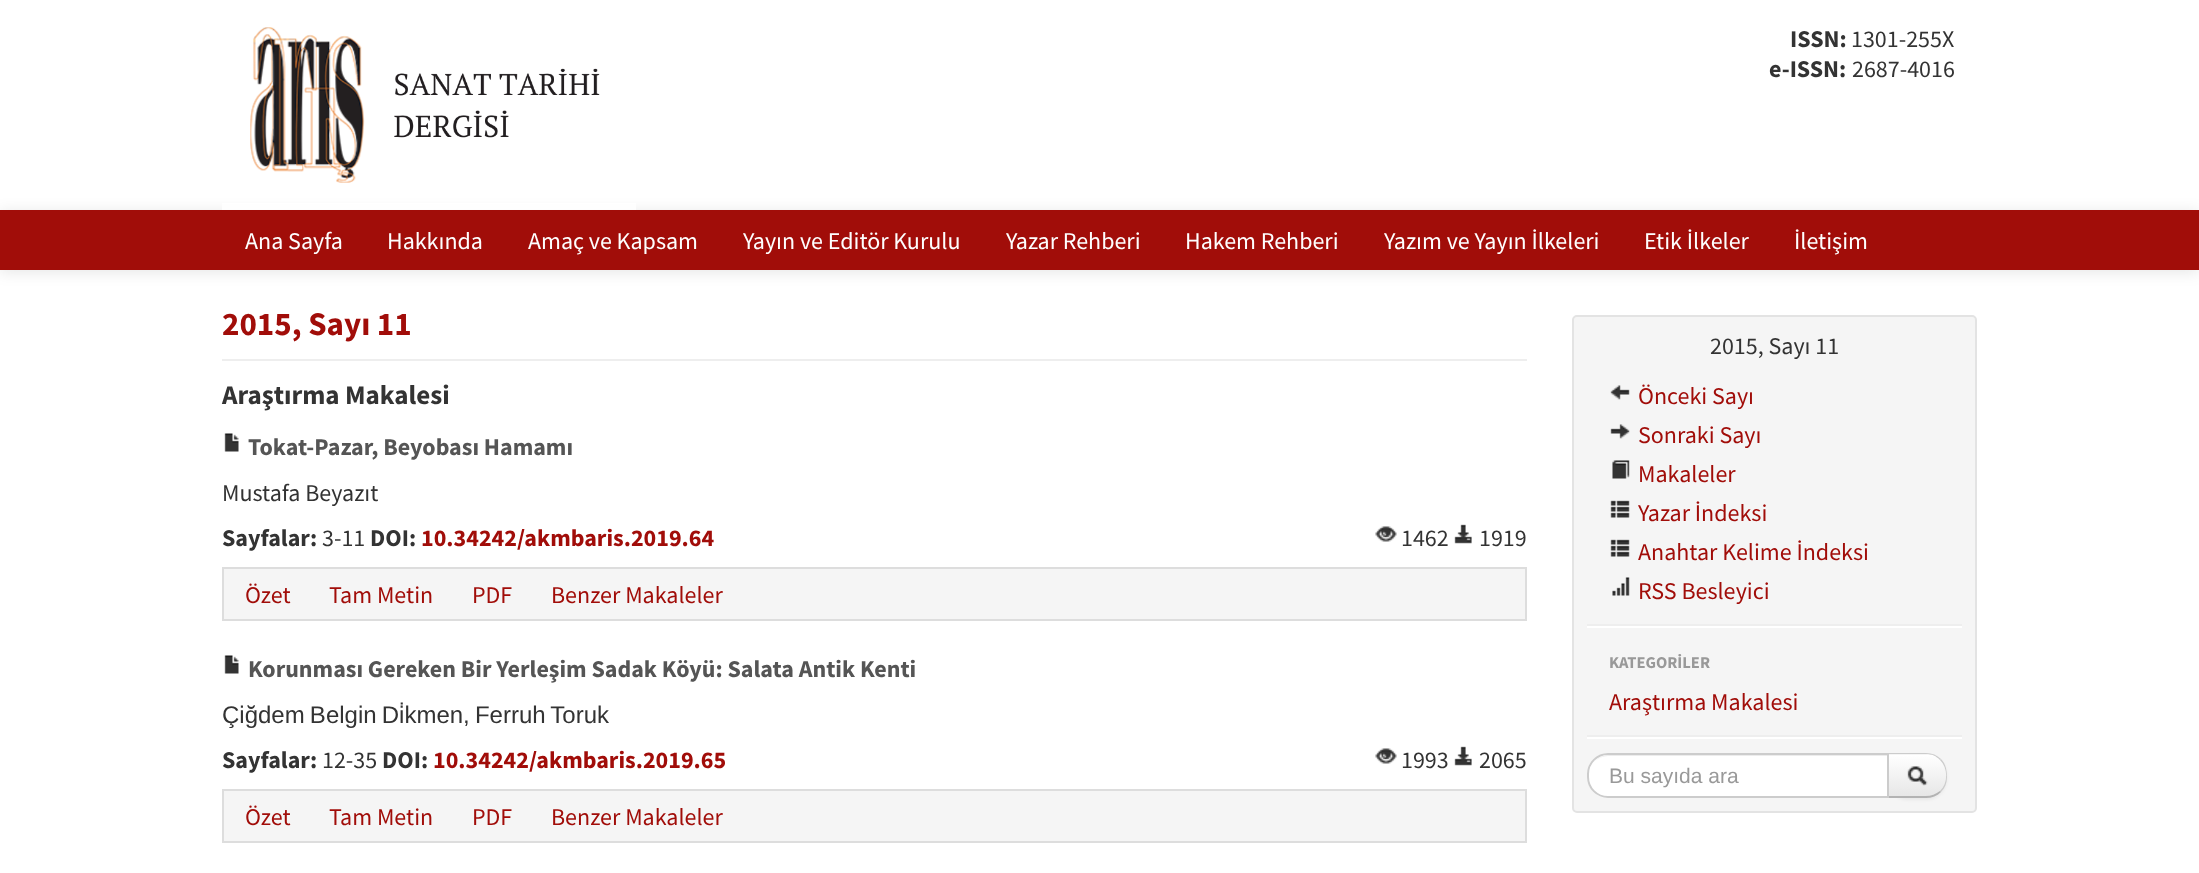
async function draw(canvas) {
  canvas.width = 2199;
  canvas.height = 873;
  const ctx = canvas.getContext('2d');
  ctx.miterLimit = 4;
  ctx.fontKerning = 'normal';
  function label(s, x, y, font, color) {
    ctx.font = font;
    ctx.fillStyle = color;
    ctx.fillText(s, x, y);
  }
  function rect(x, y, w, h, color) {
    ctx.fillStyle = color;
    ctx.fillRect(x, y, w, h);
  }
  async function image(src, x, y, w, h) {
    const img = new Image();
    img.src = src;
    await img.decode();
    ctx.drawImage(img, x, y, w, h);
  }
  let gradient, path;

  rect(0, 0, 2199, 873, '#fff');
  await image('assets/img1.png', 250, 27, 350, 156);
  ctx.fillStyle = '#0000001a';
  ctx.filter = 'blur(7.5px)';
  ctx.beginPath();
  ctx.rect(0, 212, 2199, 60);
  ctx.fill();
  ctx.filter = 'none';
  rect(222, 203, 414, 7, '#ffffffcc');
  label('ISSN:', 1790, 47, 'bold 24px Source Sans Pro', '#333');
  label('1301-255X', 1851, 47, '24px Source Sans Pro', '#333');
  label('e-ISSN:', 1769, 77, 'bold 24px Source Sans Pro', '#333');
  label('2687-4016', 1852, 77, '24px Source Sans Pro', '#333');
  rect(0, 210, 2199, 60, '#a10d09');
  label('Ana Sayfa', 245, 249, '24px Source Sans Pro', '#fefefe');
  label('Hakkında', 387, 249, '24px Source Sans Pro', '#fefefe');
  label('Amaç ve Kapsam', 528, 249, '24px Source Sans Pro', '#fefefe');
  label('Yayın ve Editör Kurulu', 743, 249, '24px Source Sans Pro', '#fefefe');
  label('Yazar Rehberi', 1006, 249, '24px Source Sans Pro', '#fefefe');
  label('Hakem Rehberi', 1185, 249, '24px Source Sans Pro', '#fefefe');
  label('Yazım ve Yayın İlkeleri', 1384, 249, '24px Source Sans Pro', '#fefefe');
  label('Etik İlkeler', 1644, 249, '24px Source Sans Pro', '#fefefe');
  label('İletişim', 1794, 249, '24px Source Sans Pro', '#fefefe');
  rect(222, 359, 1305, 2, '#eee');
  label('2015, Sayı 11', 222, 335, 'bold 33px Source Sans Pro', '#a10d09');
  label('Araştırma Makalesi', 222, 404, 'bold 27px Source Sans Pro', '#333');
  await image('assets/img2.png', 224, 433, 15, 19);
  label('Tokat-Pazar, Beyobası Hamamı', 248, 455, 'bold 24px Source Sans Pro', '#555');
  label('Mustafa Beyazıt', 222, 501, '24px Source Sans Pro', '#333');
  label('Sayfalar:', 222, 546, 'bold 24px Source Sans Pro', '#333');
  label('3-11', 322, 546, '24px Source Sans Pro', '#333');
  label('DOI:', 370, 546, 'bold 24px Source Sans Pro', '#333');
  label('10.34242/akmbaris.2019.64', 421, 546, 'bold 24px Source Sans Pro', '#a10d09');
  await image('assets/img3.png', 1375, 526, 22, 16);
  label('1462', 1401, 546, '24px Source Sans Pro', '#333');
  await image('assets/img4.png', 1454, 524, 18, 20);
  label('1919', 1479, 546, '24px Source Sans Pro', '#333');
  ctx.fillStyle = '#f5f5f5';
  ctx.beginPath();
  ctx.rect(223, 568, 1303, 52);
  ctx.fill();
  ctx.strokeStyle = '#ddd';
  ctx.lineWidth = 2;
  ctx.stroke();
  label('Özet', 245, 603, '24px Source Sans Pro', '#a10d09');
  label('Tam Metin', 329, 603, '24px Source Sans Pro', '#a10d09');
  label('PDF', 472, 603, '24px Source Sans Pro', '#a10d09');
  label('Benzer Makaleler', 551, 603, '24px Source Sans Pro', '#a10d09');
  await image('assets/img2.png', 224, 655, 15, 19);
  label('Korunması Gereken Bir Yerleşim Sadak Köyü: Salata Antik Kenti', 248, 677, 'bold 24px Source Sans Pro', '#555');
  ctx.wordSpacing = '-1.5px';
  label('Çiğdem Belgin Di̇kmen, Ferruh Toruk', 222, 723, '24px Liberation Sans', '#333');
  ctx.wordSpacing = '0px';
  label('Sayfalar:', 222, 768, 'bold 24px Source Sans Pro', '#333');
  label('12-35', 322, 768, '24px Source Sans Pro', '#333');
  label('DOI:', 382, 768, 'bold 24px Source Sans Pro', '#333');
  label('10.34242/akmbaris.2019.65', 433, 768, 'bold 24px Source Sans Pro', '#a10d09');
  await image('assets/img3.png', 1375, 748, 22, 16);
  label('1993', 1401, 768, '24px Source Sans Pro', '#333');
  await image('assets/img4.png', 1454, 746, 18, 20);
  label('2065', 1479, 768, '24px Source Sans Pro', '#333');
  ctx.fillStyle = '#f5f5f5';
  ctx.beginPath();
  ctx.rect(223, 790, 1303, 52);
  ctx.fill();
  ctx.stroke();
  label('Özet', 245, 825, '24px Source Sans Pro', '#a10d09');
  label('Tam Metin', 329, 825, '24px Source Sans Pro', '#a10d09');
  label('PDF', 472, 825, '24px Source Sans Pro', '#a10d09');
  label('Benzer Makaleler', 551, 825, '24px Source Sans Pro', '#a10d09');
  ctx.fillStyle = '#f5f5f5';
  ctx.beginPath();
  ctx.roundRect(1573, 316, 403, 496, 4);
  ctx.fill();
  ctx.strokeStyle = '#e3e3e3';
  ctx.stroke();
  label('2015, Sayı 11', 1710, 354, '24px Source Sans Pro', '#333');
  await image('assets/img5.png', 1610, 385, 20, 15);
  label('Önceki Sayı', 1638, 404, '24px Source Sans Pro', '#a10d09');
  await image('assets/img6.png', 1610, 424, 20, 15);
  label('Sonraki Sayı', 1638, 443, '24px Source Sans Pro', '#a10d09');
  await image('assets/img7.png', 1612, 460, 18, 19);
  label('Makaleler', 1638, 482, '24px Source Sans Pro', '#a10d09');
  await image('assets/img8.png', 1610, 500, 20, 18);
  label('Yazar İndeksi', 1638, 521, '24px Source Sans Pro', '#a10d09');
  await image('assets/img8.png', 1610, 539, 20, 18);
  label('Anahtar Kelime İndeksi', 1638, 560, '24px Source Sans Pro', '#a10d09');
  await image('assets/img9.png', 1612, 577, 18, 19);
  label('RSS Besleyici', 1638, 599, '24px Source Sans Pro', '#a10d09');
  rect(1587, 624, 375, 2, '#eee');
  rect(1587, 626, 375, 2, '#fff');
  label('KATEGORİLER', 1609, 668, 'bold 16.5px Source Sans Pro', '#999');
  label('Araştırma Makalesi', 1609, 710, '24px Source Sans Pro', '#a10d09');
  rect(1587, 735, 375, 2, '#eee');
  rect(1587, 737, 375, 2, '#fff');
  ctx.fillStyle = '#0000000d';
  ctx.filter = 'blur(1.5px)';
  ctx.beginPath();
  ctx.roundRect(1887, 755, 60, 45, 21);
  ctx.fill();
  ctx.filter = 'none';
  ctx.fillStyle = '#f5f5f5';
  ctx.beginPath();
  ctx.roundRect(1887, 753, 60, 45, [0, 21, 21, 0]);
  ctx.fill();
  ctx.save();
  ctx.beginPath();
  ctx.roundRect(1887, 753, 60, 45, [0, 21, 21, 0]);
  ctx.clip();
  gradient = ctx.createLinearGradient(1917, 755, 1917, 797);
  gradient.addColorStop(0, '#fff');
  gradient.addColorStop(1, '#e6e6e6');
  ctx.fillStyle = gradient;
  ctx.fillRect(1889, 755, 58, 42);
  ctx.restore();
  ctx.fillStyle = '#ccc';
  path = new Path2D('M1887 753L1888 754H1926C1932 754 1936 756 1940 760L1941 759C1937 755 1932 753 1926 753Z');
  ctx.fill(path);
  path = new Path2D('M1947 777C1947 770.5 1946 764 1941 759L1940 760C1948 768 1948.5 783 1940 791L1941 792C1945 788 1947 783 1947 777Z');
  ctx.fill(path);
  ctx.fillStyle = '#b3b3b3';
  path = new Path2D('M1926 798C1932 798 1937 796 1941 792L1940 791C1936 794 1931 796 1926 796H1889L1887 798Z');
  ctx.fill(path);
  ctx.fillStyle = '#fff';
  ctx.beginPath();
  ctx.roundRect(1587, 753, 302, 45, [21, 0, 0, 21]);
  ctx.fill();
  ctx.fillStyle = '#ececec';
  path = new Path2D('M1608 756H1887V755H1609C1603 755 1598 758 1594 762C1598 758 1603 756 1608 756Z');
  ctx.fill(path);
  ctx.beginPath();
  ctx.roundRect(1588, 754, 300, 43, [20, 0, 0, 20]);
  ctx.strokeStyle = '#ccc';
  ctx.stroke();
  label('Bu sayıda ara', 1609, 783, '21px Liberation Sans', '#999');
  await image('assets/img10.png', 1907, 766, 21, 20);
}

draw(document.querySelector('canvas'));
